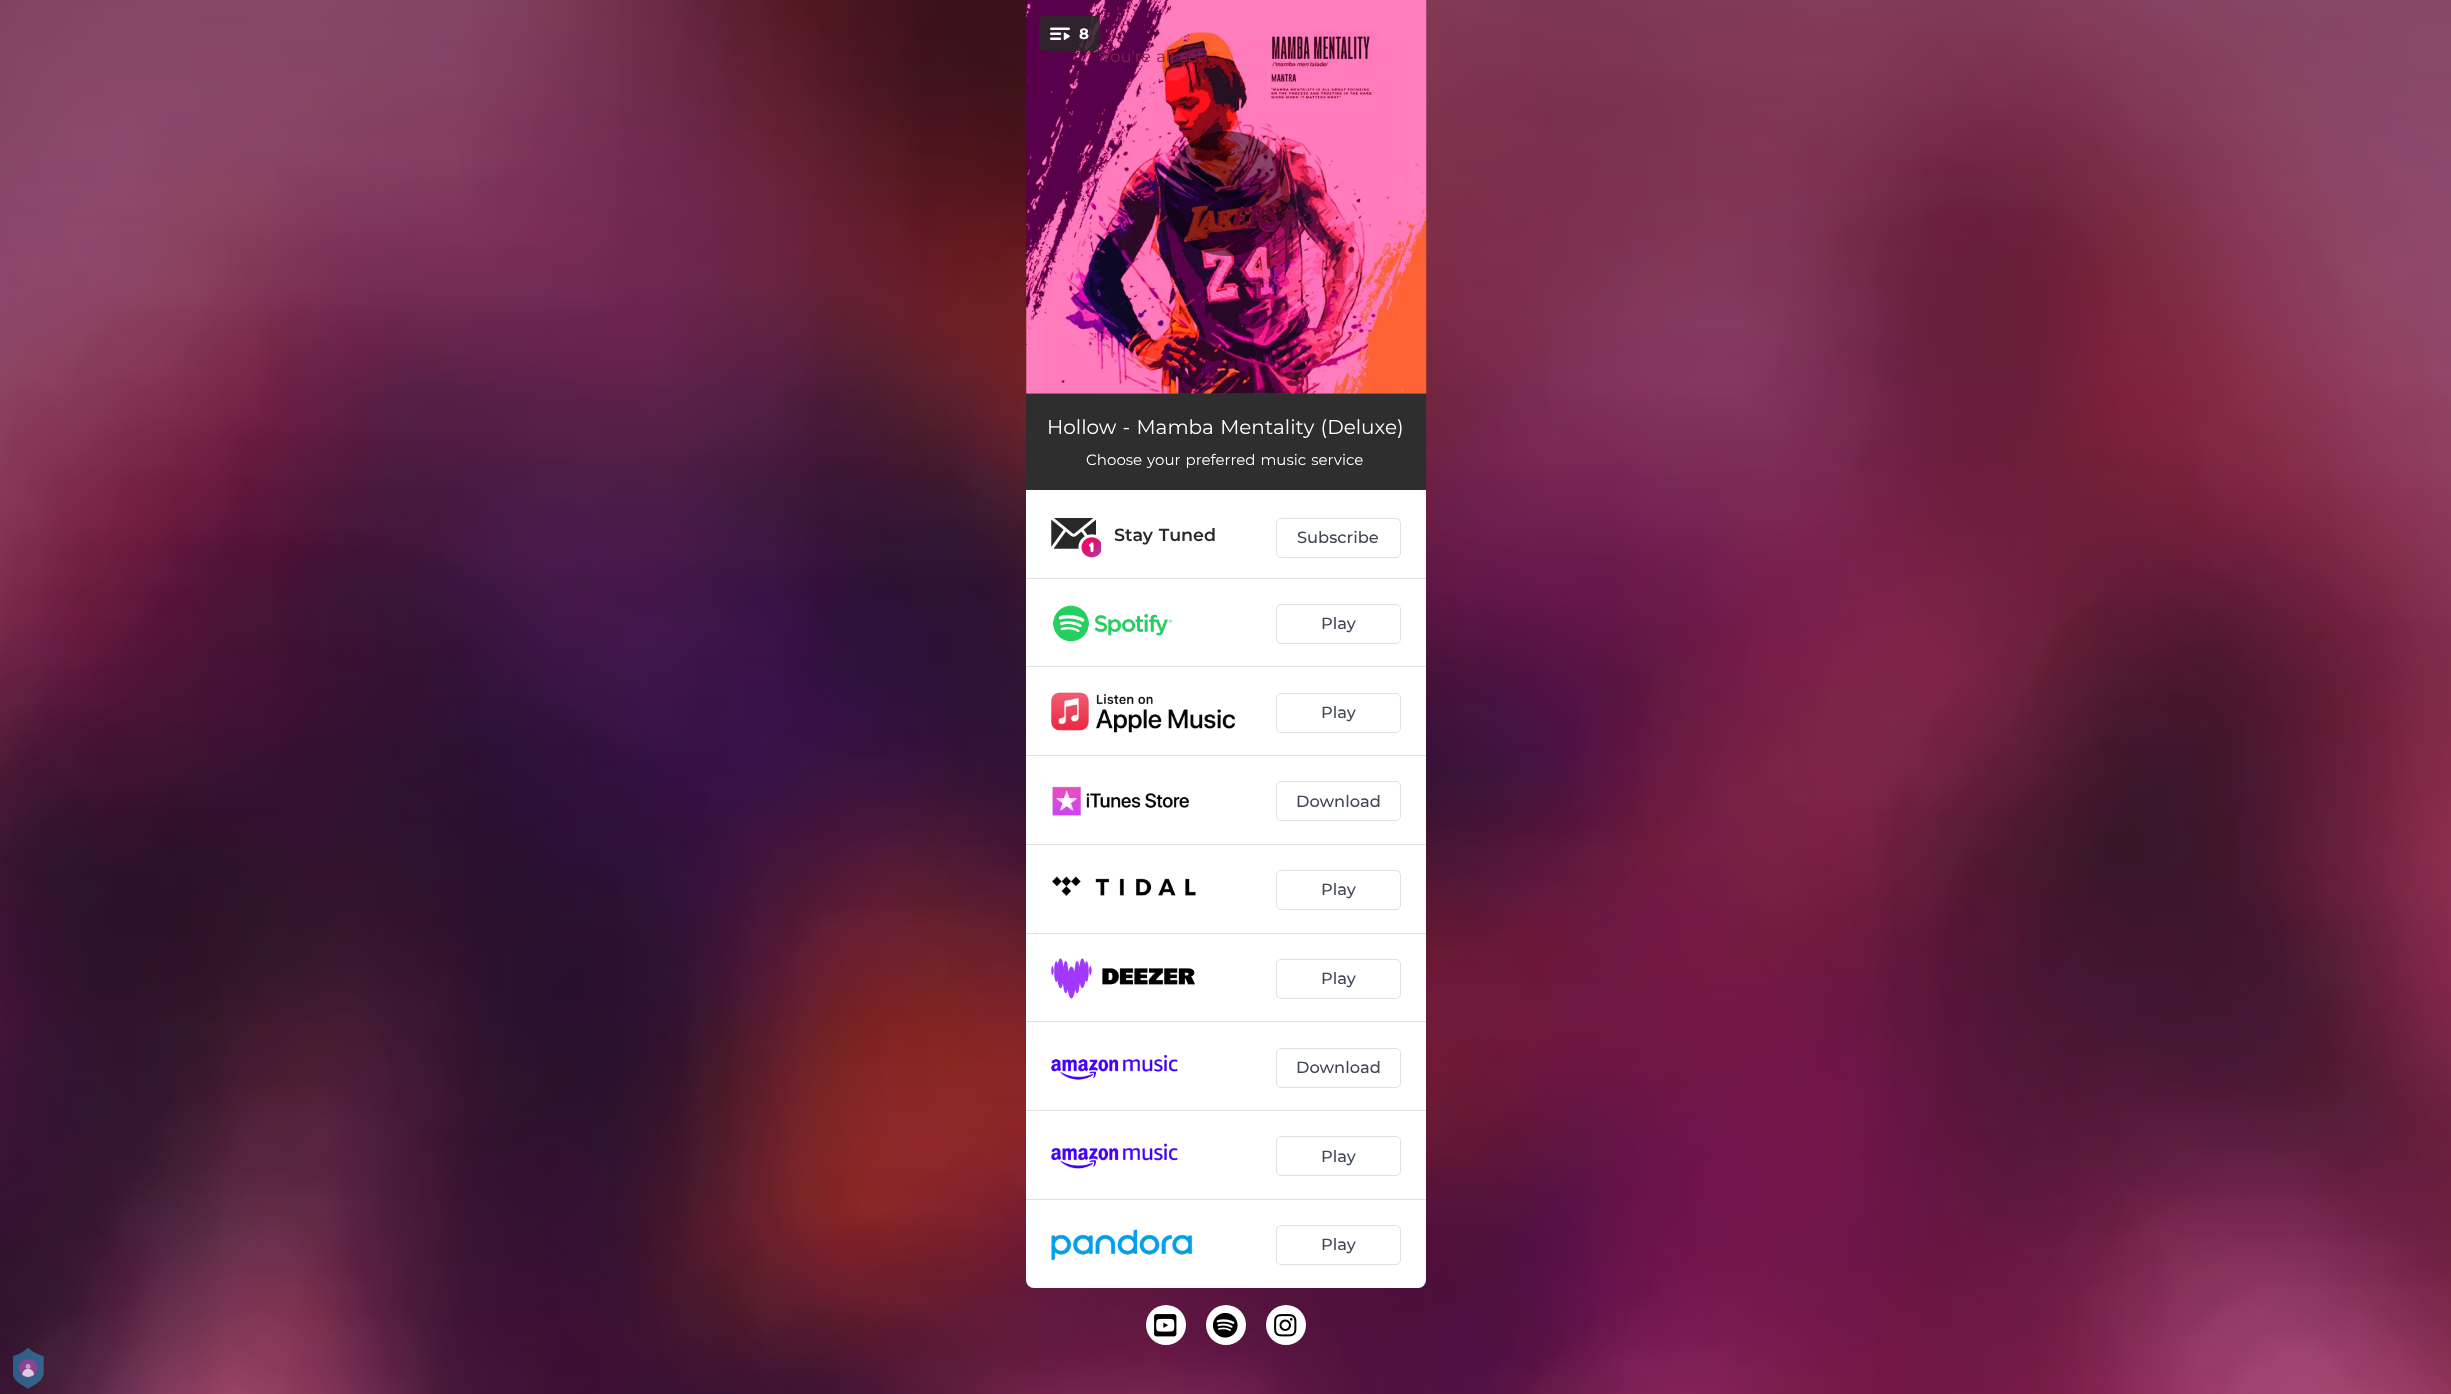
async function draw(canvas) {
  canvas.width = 2451;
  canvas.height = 1394;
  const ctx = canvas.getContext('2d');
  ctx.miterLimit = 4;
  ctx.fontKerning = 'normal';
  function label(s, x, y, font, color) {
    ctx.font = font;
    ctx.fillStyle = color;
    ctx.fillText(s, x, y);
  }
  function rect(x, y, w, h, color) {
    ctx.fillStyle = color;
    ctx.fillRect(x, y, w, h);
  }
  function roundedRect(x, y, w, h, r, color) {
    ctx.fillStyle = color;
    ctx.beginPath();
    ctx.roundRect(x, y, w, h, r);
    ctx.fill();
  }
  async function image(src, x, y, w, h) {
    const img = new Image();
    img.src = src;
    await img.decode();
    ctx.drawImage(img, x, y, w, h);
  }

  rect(0, 0, 2451, 1394, '#fff');
  await image('assets/img1.png', 0, 0, 2451, 1394);
  await image('assets/img2.png', 1026, 0, 401, 394);
  roundedRect(1039, 16, 61, 35, 5, '#282828d9');
  await image('assets/img3.png', 1050, 27, 20, 13);
  label('8', 1079, 39, 'bold 15px Montserrat', '#fff');
  ctx.fillStyle = '#00000073';
  ctx.beginPath();
  ctx.arc(1226.5, 193.5, 62.5, 0, 2 * Math.PI);
  ctx.fill();
  ctx.wordSpacing = '1px';
  label('You\'re all set!', 1101, 62, '16.25px Montserrat', '#862151');
  rect(1026, 394, 400, 96, '#2e2e2e');
  label('Hollow - Mamba Mentality (Deluxe)', 1047, 434, '20px Montserrat', '#fff');
  label('Choose your preferred music service', 1086, 465, '15px Montserrat', '#fff');
  ctx.beginPath();
  ctx.roundRect(1026, 490, 400, 798, [0, 0, 8, 8]);
  ctx.fill();
  rect(1026, 578, 400, 1, '#e1e1e4');
  await image('assets/img4.png', 1051, 518, 50, 40);
  label('Stay Tuned', 1114, 541, '600 17.5px Montserrat', '#282828');
  ctx.beginPath();
  ctx.roundRect(1276.5, 518.5, 124, 39, 4.5);
  ctx.strokeStyle = '#e1e1e4';
  ctx.stroke();
  ctx.wordSpacing = '0px';
  label('Subscribe', 1297, 543, '500 16.25px Montserrat', '#414754');
  rect(1026, 666, 400, 1, '#e1e1e4');
  await image('assets/img5.png', 1052, 605, 121, 37);
  ctx.beginPath();
  ctx.roundRect(1276.5, 604.5, 124, 39, 4.5);
  ctx.stroke();
  label('Play', 1321, 629, '500 16.25px Montserrat', '#414754');
  rect(1026, 755, 400, 1, '#e1e1e4');
  await image('assets/img6.png', 1051, 692, 184, 41);
  ctx.beginPath();
  ctx.roundRect(1276.5, 693.5, 124, 39, 4.5);
  ctx.stroke();
  label('Play', 1321, 718, '500 16.25px Montserrat', '#414754');
  rect(1026, 844, 400, 1, '#e1e1e4');
  await image('assets/img7.png', 1052, 786, 138, 30);
  ctx.beginPath();
  ctx.roundRect(1276.5, 781.5, 124, 39, 4.5);
  ctx.stroke();
  label('Download', 1296, 807, '500 16.25px Montserrat', '#414754');
  rect(1026, 933, 400, 1, '#e1e1e4');
  await image('assets/img8.png', 1052, 876, 144, 20);
  ctx.beginPath();
  ctx.roundRect(1276.5, 870.5, 124, 39, 4.5);
  ctx.stroke();
  label('Play', 1321, 895, '500 16.25px Montserrat', '#414754');
  rect(1026, 1021, 400, 1, '#e1e1e4');
  await image('assets/img9.png', 1051, 958, 144, 41);
  ctx.beginPath();
  ctx.roundRect(1276.5, 959.5, 124, 39, 4.5);
  ctx.stroke();
  label('Play', 1321, 984, '500 16.25px Montserrat', '#414754');
  rect(1026, 1110, 400, 1, '#e1e1e4');
  await image('assets/img10.png', 1051, 1054, 127, 26);
  ctx.beginPath();
  ctx.roundRect(1276.5, 1048.5, 124, 39, 4.5);
  ctx.stroke();
  label('Download', 1296, 1073, '500 16.25px Montserrat', '#414754');
  rect(1026, 1199, 400, 1, '#e1e1e4');
  await image('assets/img11.png', 1051, 1143, 127, 26);
  ctx.beginPath();
  ctx.roundRect(1276.5, 1136.5, 124, 39, 4.5);
  ctx.stroke();
  label('Play', 1321, 1162, '500 16.25px Montserrat', '#414754');
  await image('assets/img12.png', 1051, 1229, 143, 32);
  ctx.beginPath();
  ctx.roundRect(1276.5, 1225.5, 124, 39, 4.5);
  ctx.stroke();
  label('Play', 1321, 1250, '500 16.25px Montserrat', '#414754');
  ctx.fillStyle = '#fff';
  ctx.beginPath();
  ctx.arc(1166, 1325, 20, 0, 2 * Math.PI);
  ctx.fill();
  await image('assets/img13.png', 1154, 1314, 23, 23);
  ctx.beginPath();
  ctx.arc(1226, 1325, 20, 0, 2 * Math.PI);
  ctx.fill();
  await image('assets/img14.png', 1213, 1313, 25, 25);
  ctx.beginPath();
  ctx.arc(1286, 1325, 20, 0, 2 * Math.PI);
  ctx.fill();
  await image('assets/img15.png', 1274, 1314, 23, 23);
  await image('assets/img16.png', 13, 1348, 31, 41);
}

draw(document.querySelector('canvas'));
